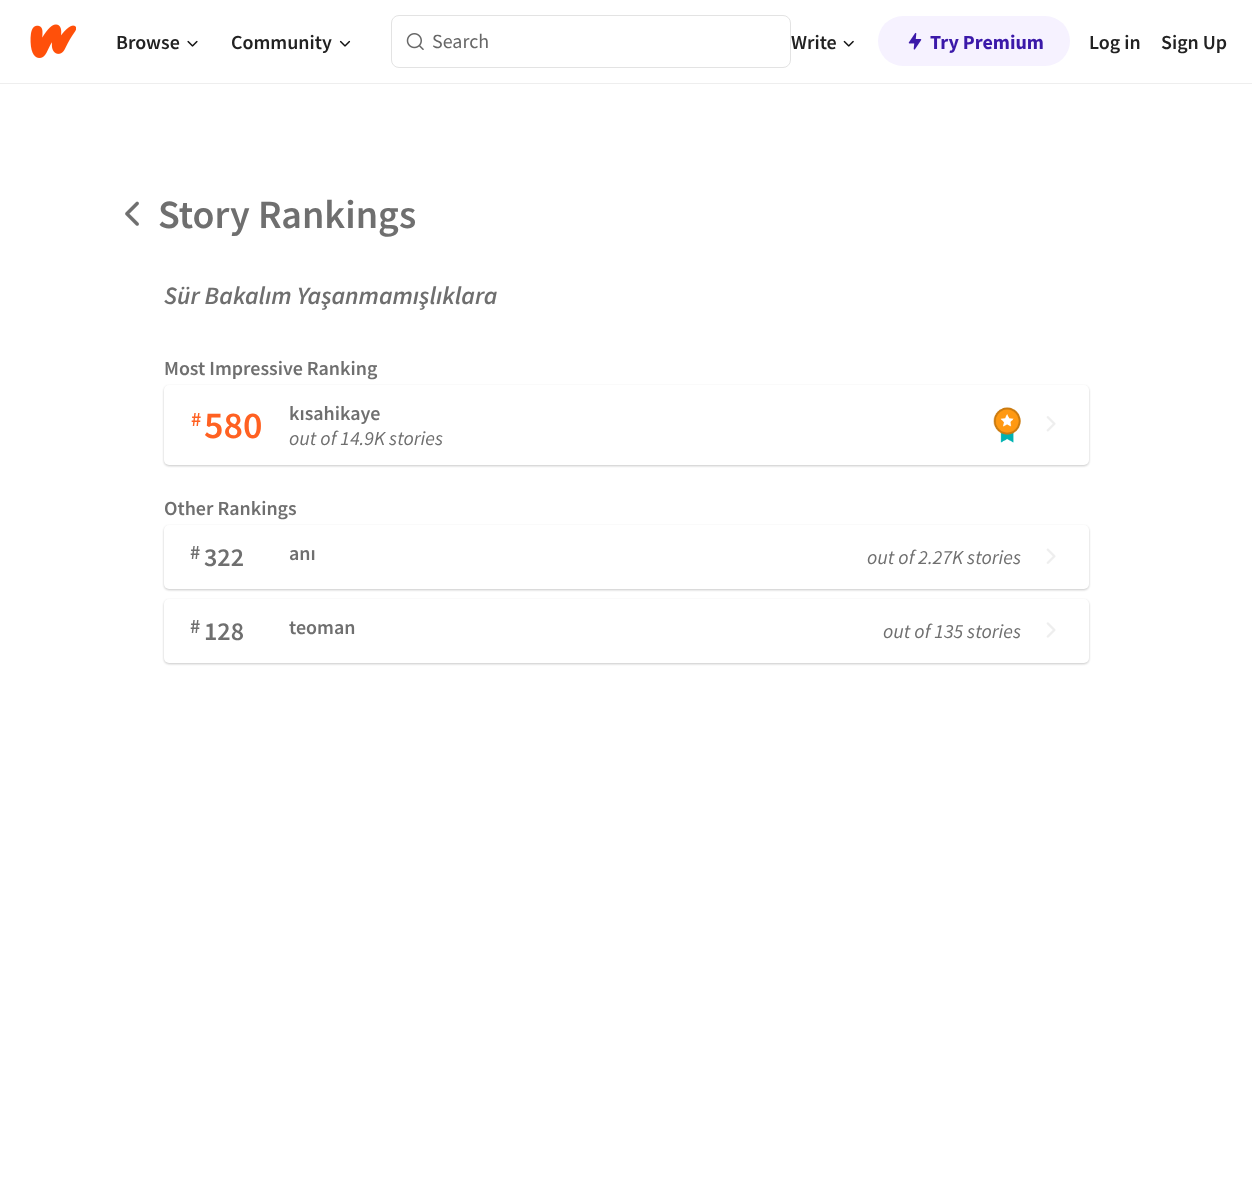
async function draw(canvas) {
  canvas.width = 1252;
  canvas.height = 1201;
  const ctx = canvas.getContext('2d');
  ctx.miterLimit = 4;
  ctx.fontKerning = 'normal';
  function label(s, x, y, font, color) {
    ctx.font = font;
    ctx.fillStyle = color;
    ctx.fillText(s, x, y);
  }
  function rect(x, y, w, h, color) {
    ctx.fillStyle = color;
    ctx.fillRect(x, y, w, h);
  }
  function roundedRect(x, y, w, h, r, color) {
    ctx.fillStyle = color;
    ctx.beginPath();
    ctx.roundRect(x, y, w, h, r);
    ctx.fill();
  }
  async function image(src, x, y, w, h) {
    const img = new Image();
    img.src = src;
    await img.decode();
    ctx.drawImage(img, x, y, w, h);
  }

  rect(0, 0, 1252, 1201, '#fff');
  rect(0, 83, 1252, 1, '#eee');
  await image('assets/img1.png', 30, 24, 46, 34);
  label('Browse', 116, 49, '600 20px Source Sans Pro', '#222');
  await image('assets/img2.png', 187, 40, 11, 7);
  label('Community', 231, 49, '600 20px Source Sans Pro', '#222');
  await image('assets/img3.png', 339, 40, 12, 7);
  ctx.beginPath();
  ctx.roundRect(391.5, 15.5, 399, 52, 7.5);
  ctx.strokeStyle = '#e3e3e3';
  ctx.stroke();
  await image('assets/img4.png', 406, 33, 18, 17);
  label('Search', 432, 48, '20px Source Sans Pro', '#676767');
  label('Write', 791, 49, '600 20px Source Sans Pro', '#222');
  await image('assets/img5.png', 843, 40, 11, 7);
  roundedRect(878, 16, 192, 50, 25, '#f6f2ff');
  await image('assets/img6.png', 908, 32, 14, 18);
  label('Try Premium', 930, 49, 'bold 20px Source Sans Pro', '#3b19a9');
  label('Log in', 1089, 49, '600 20px Source Sans Pro', '#222');
  label('Sign Up', 1161, 49, '600 20px Source Sans Pro', '#222');
  await image('assets/img7.png', 125, 201, 14, 25);
  label('Story Rankings', 158, 228, '600 40px Source Sans Pro', '#6f6f6f');
  label('Sür Bakalım Yaşanmamışlıklara', 164, 304, 'italic 600 25px Source Sans Pro', '#6f6f6f');
  label('Most Impressive Ranking', 164, 375, '600 20px Source Sans Pro', '#6f6f6f');
  ctx.fillStyle = '#00000038';
  ctx.filter = 'blur(1px)';
  ctx.beginPath();
  ctx.roundRect(164, 386, 925, 80, 5);
  ctx.fill();
  ctx.filter = 'none';
  roundedRect(164, 385, 925, 80, 5, '#fff');
  label('#', 191, 426, '600 20px Source Sans Pro', '#ff6122');
  label('580', 204, 438, '600 38px Source Sans Pro', '#ff6122');
  label('kısahikaye', 289, 420, '600 20px Source Sans Pro', '#6f6f6f');
  label('out of 14.9K stories', 289, 445, 'italic 20px Source Sans Pro', '#6f6f6f');
  await image('assets/img8.png', 993, 407, 28, 36);
  await image('assets/img9.png', 1046, 416, 10, 16);
  label('Other Rankings', 164, 515, '600 20px Source Sans Pro', '#6f6f6f');
  ctx.fillStyle = '#00000038';
  ctx.filter = 'blur(1px)';
  ctx.beginPath();
  ctx.roundRect(164, 526, 925, 64, 5);
  ctx.fill();
  ctx.filter = 'none';
  roundedRect(164, 525, 925, 64, 5, '#fff');
  label('#', 190, 559, '600 20px Source Sans Pro', '#6f6f6f');
  label('322', 204, 566, '600 26px Source Sans Pro', '#6f6f6f');
  label('anı', 289, 560, '600 20px Source Sans Pro', '#6f6f6f');
  label('out of 2.27K stories', 867, 564, 'italic 20px Source Sans Pro', '#6f6f6f');
  await image('assets/img10.png', 1046, 548, 10, 16);
  ctx.fillStyle = '#00000038';
  ctx.filter = 'blur(1px)';
  ctx.beginPath();
  ctx.roundRect(164, 600, 925, 64, 5);
  ctx.fill();
  ctx.filter = 'none';
  roundedRect(164, 599, 925, 64, 5, '#fff');
  label('#', 190, 633, '600 20px Source Sans Pro', '#6f6f6f');
  label('128', 204, 640, '600 26px Source Sans Pro', '#6f6f6f');
  label('teoman', 289, 634, '600 20px Source Sans Pro', '#6f6f6f');
  label('out of 135 stories', 883, 638, 'italic 20px Source Sans Pro', '#6f6f6f');
  await image('assets/img11.png', 1046, 622, 10, 16);
}

draw(document.querySelector('canvas'));
